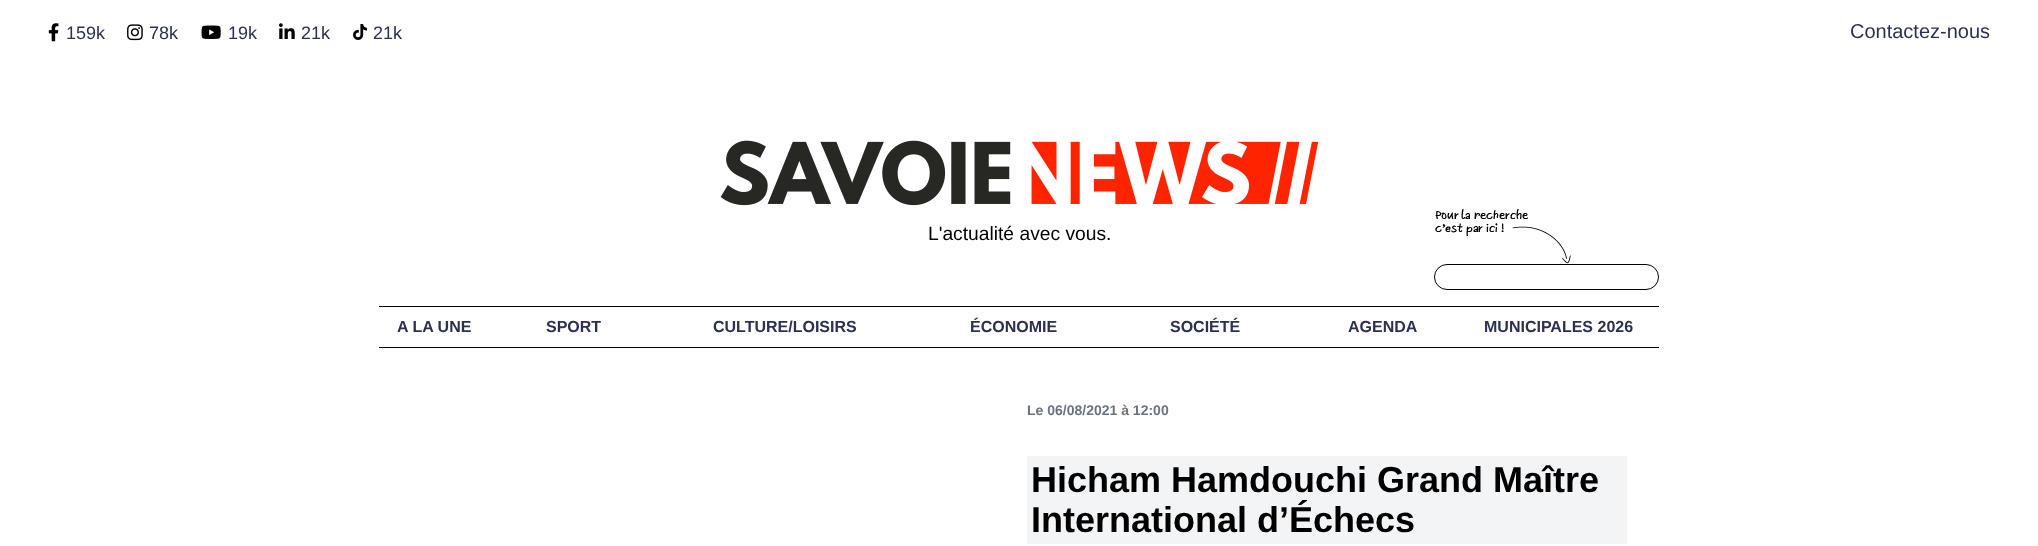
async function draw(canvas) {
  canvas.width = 2038;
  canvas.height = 546;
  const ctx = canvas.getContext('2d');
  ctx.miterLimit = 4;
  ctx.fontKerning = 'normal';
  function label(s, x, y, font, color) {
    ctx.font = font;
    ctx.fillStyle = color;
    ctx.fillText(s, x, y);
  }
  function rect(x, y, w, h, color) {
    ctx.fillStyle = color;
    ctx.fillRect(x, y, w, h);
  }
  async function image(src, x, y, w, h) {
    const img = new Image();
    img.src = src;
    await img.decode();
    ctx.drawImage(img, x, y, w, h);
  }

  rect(0, 0, 2038, 546, '#fff');
  await image('assets/img1.png', 48, 23, 11, 19);
  label('159k', 66, 39, '18px Liberation Sans', '#2b3054');
  await image('assets/img2.png', 127, 24, 16, 17);
  label('78k', 149, 39, '18px Liberation Sans', '#2b3054');
  await image('assets/img3.png', 201, 25, 20, 14);
  label('19k', 228, 39, '18px Liberation Sans', '#2b3054');
  await image('assets/img4.png', 279, 23, 16, 16);
  label('21k', 301, 39, '18px Liberation Sans', '#2b3054');
  await image('assets/img5.png', 353, 24, 14, 16);
  label('21k', 373, 39, '18px Liberation Sans', '#2b3054');
  label('Contactez-nous', 1850, 38, '20px Liberation Sans', '#2b3054');
  await image('assets/img6.png', 720, 140, 599, 66);
  label('L\'actualité avec vous.', 928, 240, '19.25px Liberation Sans', '#000');
  rect(379, 306, 1280, 1, '#000');
  rect(379, 347, 1280, 1, '#000');
  await image('assets/img7.png', 1435, 209, 136, 55);
  ctx.beginPath();
  ctx.roundRect(1434.5, 264.5, 224, 25, 12.5);
  ctx.strokeStyle = '#000';
  ctx.stroke();
  label('A LA UNE', 397, 332, 'bold 16px Liberation Sans', '#2b3054');
  label('SPORT', 546, 332, 'bold 16px Liberation Sans', '#2b3054');
  label('CULTURE/LOISIRS', 713, 332, 'bold 16px Liberation Sans', '#2b3054');
  label('ÉCONOMIE', 970, 332, 'bold 16px Liberation Sans', '#2b3054');
  label('SOCIÉTÉ', 1170, 332, 'bold 16px Liberation Sans', '#2b3054');
  label('AGENDA', 1348, 332, 'bold 16px Liberation Sans', '#2b3054');
  label('MUNICIPALES 2026', 1484, 332, 'bold 16px Liberation Sans', '#2b3054');
  label('Le 06/08/2021 à 12:00', 1027, 415, 'bold 14px Liberation Sans', '#6b7280');
  rect(1027, 456, 600, 88, '#f3f4f6');
  label('Hicham Hamdouchi Grand Maître', 1031, 492, 'bold 36px Liberation Sans', '#000');
  label('International d’Échecs', 1031, 532, 'bold 36px Liberation Sans', '#000');
}

draw(document.querySelector('canvas'));
